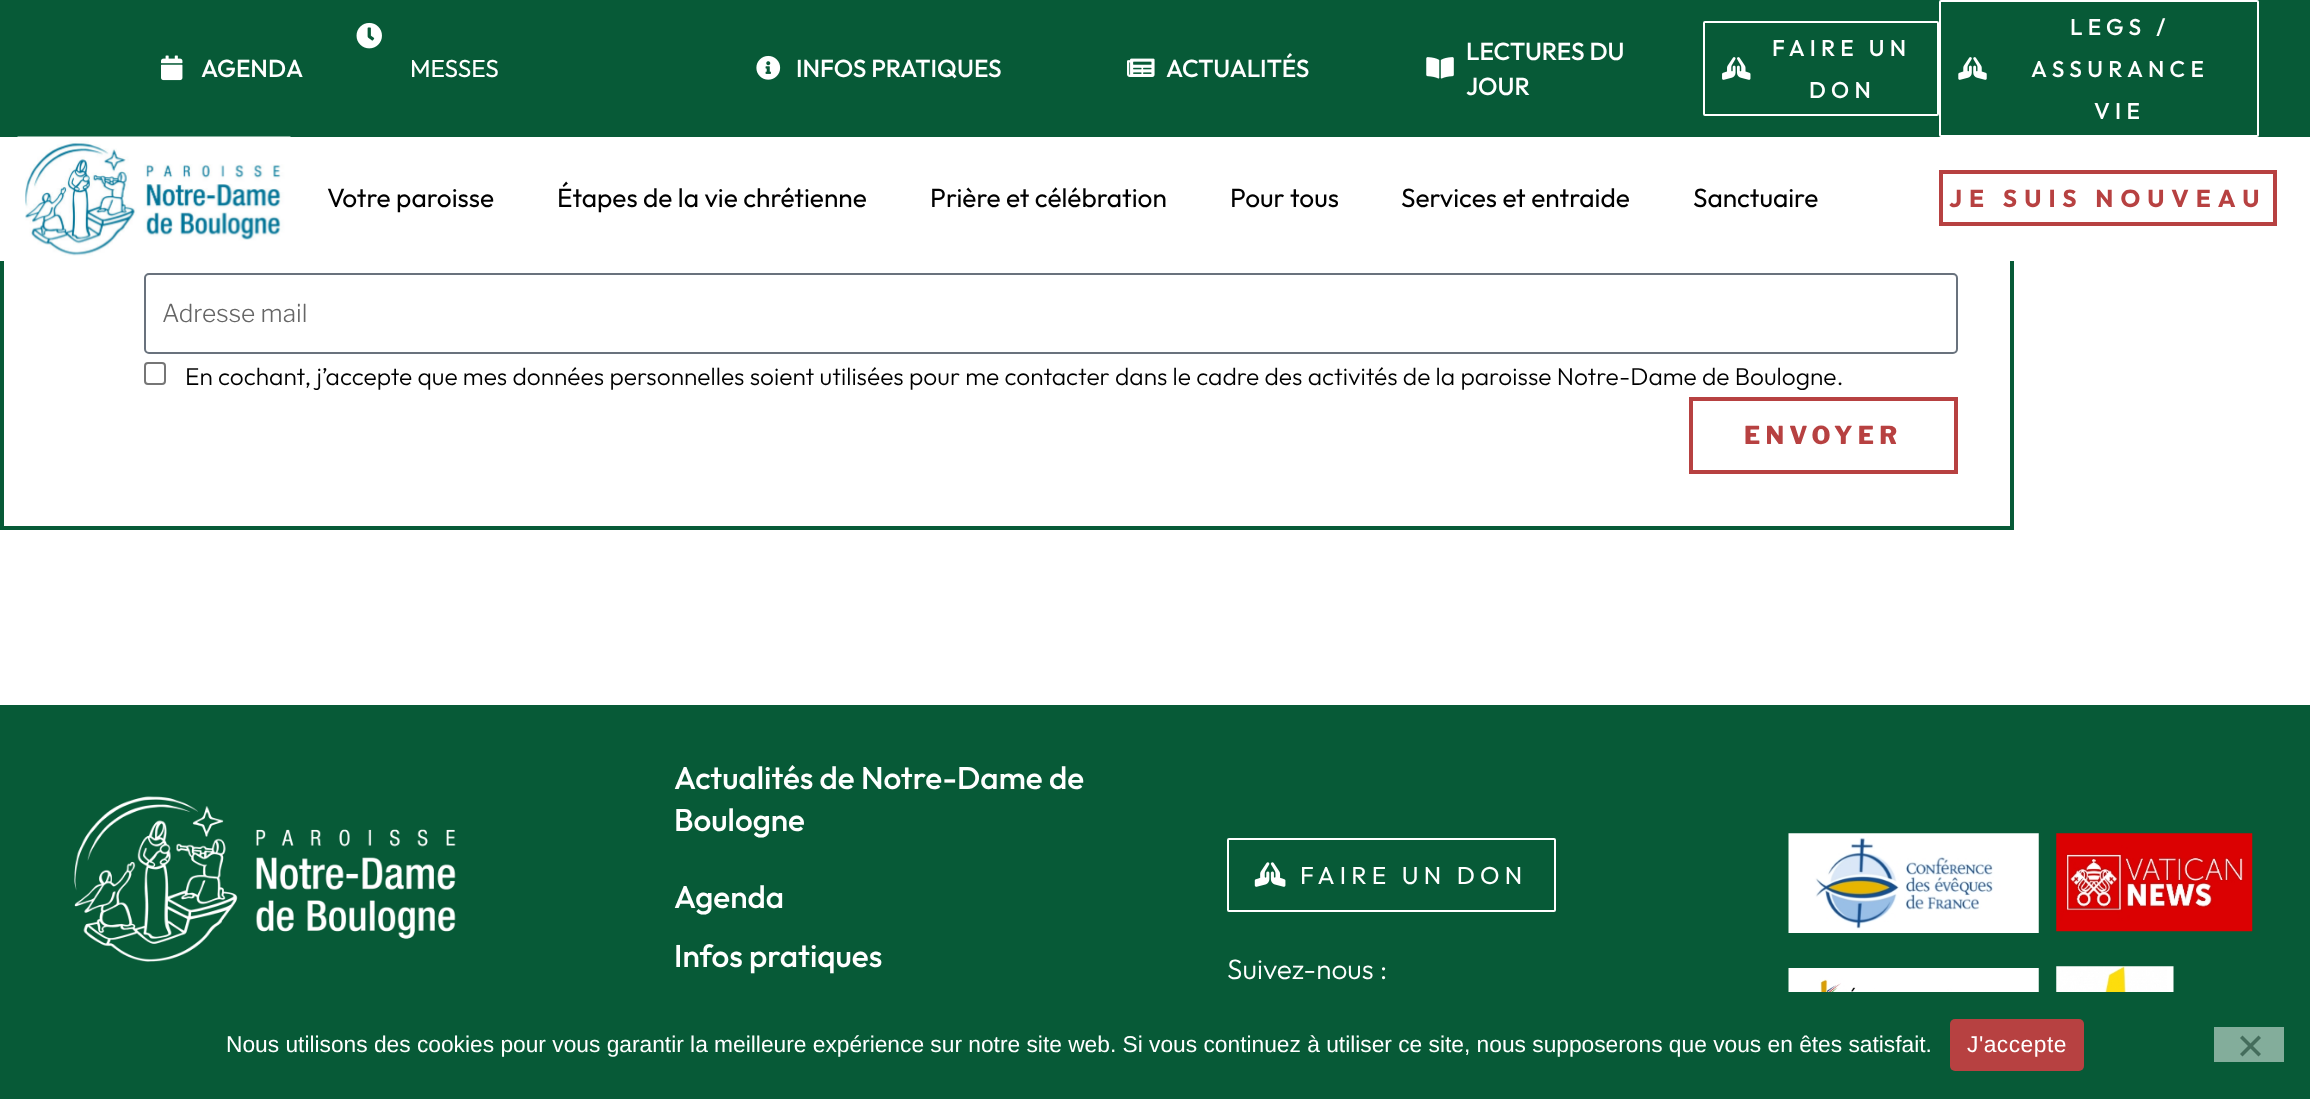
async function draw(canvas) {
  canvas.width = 2310;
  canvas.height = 1099;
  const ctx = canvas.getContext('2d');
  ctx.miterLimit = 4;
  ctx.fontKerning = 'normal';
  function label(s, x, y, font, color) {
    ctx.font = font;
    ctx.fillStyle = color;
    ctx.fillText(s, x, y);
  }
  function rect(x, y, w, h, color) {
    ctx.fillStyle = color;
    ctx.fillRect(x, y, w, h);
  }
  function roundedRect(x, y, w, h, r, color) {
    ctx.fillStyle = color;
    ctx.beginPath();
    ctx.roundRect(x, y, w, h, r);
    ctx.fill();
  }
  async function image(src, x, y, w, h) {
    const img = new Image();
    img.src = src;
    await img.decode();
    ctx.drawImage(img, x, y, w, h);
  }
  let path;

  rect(0, 0, 2310, 1099, '#fff');
  ctx.strokeStyle = '#075a37';
  ctx.lineWidth = 4;
  ctx.strokeRect(2, 142, 2010, 386);
  rect(0, 140, 2014, 121, '#fff');
  rect(0, 0, 2310, 137, '#075a37');
  await image('assets/img1.png', 356, 22, 26, 27);
  ctx.beginPath();
  ctx.roundRect(1704, 22, 234, 93, 1);
  ctx.strokeStyle = '#fff';
  ctx.lineWidth = 2;
  ctx.stroke();
  await image('assets/img2.png', 1722, 57, 29, 23);
  ctx.letterSpacing = '5.25px';
  label('FAIRE UN', 1772, 56, '500 22.75px Outfit', '#fff');
  label('DON', 1809, 98, '500 22.75px Outfit', '#fff');
  ctx.beginPath();
  ctx.roundRect(1940, 1, 318, 135, 1);
  ctx.stroke();
  await image('assets/img3.png', 1958, 57, 29, 23);
  label('LEGS /', 2070, 35, '500 22.75px Outfit', '#fff');
  label('ASSURANCE', 2031, 77, '500 22.75px Outfit', '#fff');
  label('VIE', 2094, 119, '500 22.75px Outfit', '#fff');
  await image('assets/img4.png', 161, 55, 22, 26);
  ctx.letterSpacing = '0px';
  label('AGENDA', 201, 77, '500 24.5px Outfit', '#fff');
  label('MESSES', 410, 77, '24.5px Outfit', '#fff');
  await image('assets/img5.png', 756, 55, 25, 25);
  label('INFOS PRATIQUES', 796, 77, '500 24.5px Outfit', '#fff');
  await image('assets/img6.png', 1127, 58, 28, 19);
  label('ACTUALITÉS', 1166, 77, '500 24.5px Outfit', '#fff');
  await image('assets/img7.png', 1426, 57, 28, 22);
  label('LECTURES DU', 1466, 60, '500 24.5px Outfit', '#fff');
  label('JOUR', 1466, 95, '500 24.5px Outfit', '#fff');
  await image('assets/img8.png', 17, 136, 274, 120);
  label('Votre paroisse', 327, 207, '26.25px Outfit', '#000');
  label('Étapes de la vie chrétienne', 557, 207, '26.25px Outfit', '#000');
  label('Prière et célébration', 930, 207, '26.25px Outfit', '#000');
  label('Pour tous', 1230, 207, '26.25px Outfit', '#000');
  label('Services et entraide', 1401, 207, '26.25px Outfit', '#000');
  label('Sanctuaire', 1693, 207, '26.25px Outfit', '#000');
  ctx.strokeStyle = '#b74141';
  ctx.lineWidth = 4;
  ctx.strokeRect(1941, 172, 334, 52);
  ctx.letterSpacing = '7px';
  label('JE SUIS NOUVEAU', 1949, 207, 'bold 24.5px Outfit', '#b74141');
  ctx.beginPath();
  ctx.roundRect(145, 274, 1812, 79, 4);
  ctx.strokeStyle = '#69727d';
  ctx.lineWidth = 2;
  ctx.stroke();
  ctx.letterSpacing = '0px';
  label('Adresse mail', 162, 322, '100 24.5px Libre Franklin', '#666');
  ctx.beginPath();
  ctx.roundRect(145, 363, 20, 21, 3);
  ctx.strokeStyle = '#767676';
  ctx.stroke();
  label('En cochant, j’accepte que mes données personnelles soient utilisées pour me contacter dans le cadre des activités de la paroisse Notre-Dame de Boulogne.', 185, 385, '300 24.5px Outfit', '#000');
  ctx.strokeStyle = '#b74141';
  ctx.lineWidth = 4;
  ctx.strokeRect(1691, 399, 265, 73);
  ctx.letterSpacing = '5.25px';
  label('ENVOYER', 1744, 444, '100 24.5px "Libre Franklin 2"', '#b74141');
  rect(0, 705, 2310, 394, '#075a37');
  await image('assets/img9.png', 74, 796, 382, 166);
  ctx.letterSpacing = '0px';
  label('Actualités de Notre-Dame de', 674, 789, '500 31.5px Outfit', '#fff');
  label('Boulogne', 674, 831, '500 31.5px Outfit', '#fff');
  label('Agenda', 674, 908, '500 31.5px Outfit', '#fff');
  label('Infos pratiques', 674, 967, '500 31.5px Outfit', '#fff');
  ctx.beginPath();
  ctx.roundRect(1228, 839, 327, 72, 1);
  ctx.strokeStyle = '#fff';
  ctx.lineWidth = 2;
  ctx.stroke();
  await image('assets/img10.png', 1254, 862, 32, 25);
  ctx.letterSpacing = '5.25px';
  label('FAIRE UN DON', 1300, 884, '24.5px Outfit', '#fff');
  ctx.letterSpacing = '0px';
  label('Suivez-nous :', 1227, 979, '300 28px Outfit', '#fff');
  await image('assets/img11.png', 1788, 833, 251, 100);
  await image('assets/img12.png', 1788, 968, 251, 24);
  await image('assets/img13.png', 2056, 833, 197, 99);
  await image('assets/img14.png', 2056, 966, 118, 26);
  label('Nous utilisons des cookies pour vous garantir la meilleure expérience sur notre site web. Si vous continuez à utiliser ce site, nous supposerons que vous en êtes satisfait.', 226, 1052, '22.75px Liberation Sans', '#fff');
  roundedRect(1950, 1019, 134, 52, 5, '#b74141');
  ctx.letterSpacing = '0.5px';
  label('J\'accepte', 1967, 1052, '22.75px Liberation Sans', '#fff');
  rect(2214, 1027, 70, 35, '#83ad9b');
  ctx.fillStyle = '#446d5c';
  path = new Path2D('M2258.5 1035.5L2261 1038L2242.5 1056.5L2240 1054Z');
  ctx.fill(path);
  path = new Path2D('M2240 1038L2242.5 1035.5L2261 1054L2258.5 1056.5Z');
  ctx.fill(path);
}

draw(document.querySelector('canvas'));
